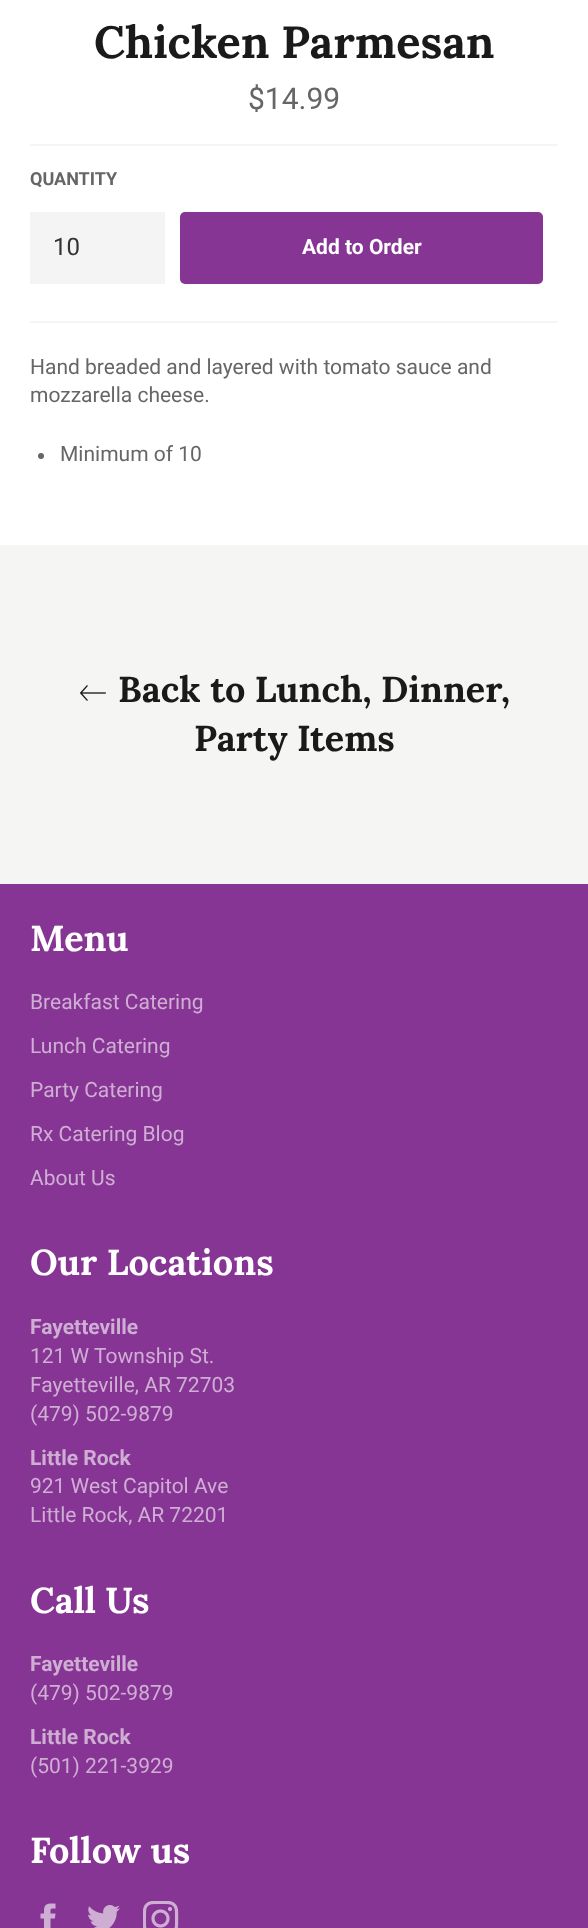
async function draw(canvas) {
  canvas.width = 588;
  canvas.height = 1928;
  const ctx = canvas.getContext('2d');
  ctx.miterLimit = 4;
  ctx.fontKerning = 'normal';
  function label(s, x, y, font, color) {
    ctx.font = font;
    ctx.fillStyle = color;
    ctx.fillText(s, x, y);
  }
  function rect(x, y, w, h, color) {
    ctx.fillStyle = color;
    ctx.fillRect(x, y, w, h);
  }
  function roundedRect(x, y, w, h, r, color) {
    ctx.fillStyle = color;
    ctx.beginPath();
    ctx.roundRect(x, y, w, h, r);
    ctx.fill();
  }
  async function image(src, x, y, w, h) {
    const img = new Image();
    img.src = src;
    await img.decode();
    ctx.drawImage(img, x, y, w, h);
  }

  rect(0, 0, 588, 1928, '#fff');
  label('Chicken Parmesan', 94, 58, 'bold 45px Lora', '#1a1a1a');
  label('$14.99', 248, 109, '30px Roboto', '#666');
  rect(30, 144, 528, 2, '#f5f5f3');
  label('QUANTITY', 30, 185, 'bold 18px Roboto', '#666');
  rect(30, 212, 135, 72, '#f4f4f4');
  label('10', 53, 255, '24px Roboto', '#333');
  roundedRect(180, 212, 363, 72, 5, '#873594');
  label('Add to Order', 302, 254, 'bold 21px Roboto', '#fff');
  rect(30, 321, 528, 2, '#f5f5f3');
  label('Hand breaded and layered with tomato sauce and', 30, 374, '21px Roboto', '#666');
  label('mozzarella cheese.', 30, 402, '21px Roboto', '#666');
  ctx.beginPath();
  ctx.arc(41, 456, 3, 0, 2 * Math.PI);
  ctx.fill();
  label('Minimum of 10', 60, 461, '21px Roboto', '#666');
  rect(0, 545, 588, 339, '#f5f5f3');
  await image('assets/img1.png', 80, 685, 26, 16);
  label('Back to Lunch, Dinner,', 118, 702, 'bold 36px Lora', '#1a1a1a');
  label('Party Items', 194, 751, 'bold 36px Lora', '#1a1a1a');
  rect(0, 884, 588, 1044, '#873594');
  label('Menu', 30, 951, 'bold 36px Lora', '#fff');
  label('Breakfast Catering', 30, 1009, '21px Roboto', '#cfaed4');
  label('Lunch Catering', 30, 1053, '21px Roboto', '#cfaed4');
  label('Party Catering', 30, 1097, '21px Roboto', '#cfaed4');
  label('Rx Catering Blog', 30, 1141, '21px Roboto', '#cfaed4');
  label('About Us', 30, 1185, '21px Roboto', '#cfaed4');
  label('Our Locations', 30, 1275, 'bold 36px Lora', '#fff');
  label('Fayetteville', 30, 1334, 'bold 21px Roboto', '#cfaed4');
  label('121 W Township St.', 30, 1363, '21px Roboto', '#cfaed4');
  label('Fayetteville, AR 72703', 30, 1392, '21px Roboto', '#cfaed4');
  label('(479) 502-9879', 30, 1421, '21px Roboto', '#cfaed4');
  label('Little Rock', 30, 1465, 'bold 21px Roboto', '#cfaed4');
  label('921 West Capitol Ave', 30, 1493, '21px Roboto', '#cfaed4');
  label('Little Rock, AR 72201', 30, 1522, '21px Roboto', '#cfaed4');
  label('Call Us', 30, 1613, 'bold 36px Lora', '#fff');
  label('Fayetteville', 30, 1671, 'bold 21px Roboto', '#cfaed4');
  label('(479) 502-9879', 30, 1700, '21px Roboto', '#cfaed4');
  label('Little Rock', 30, 1744, 'bold 21px Roboto', '#cfaed4');
  label('(501) 221-3929', 30, 1773, '21px Roboto', '#cfaed4');
  label('Follow us', 30, 1863, 'bold 36px Lora', '#fff');
  await image('assets/img2.png', 40, 1903, 16, 25);
  await image('assets/img3.png', 88, 1905, 32, 23);
  await image('assets/img4.png', 143, 1901, 36, 27);
}

draw(document.querySelector('canvas'));
